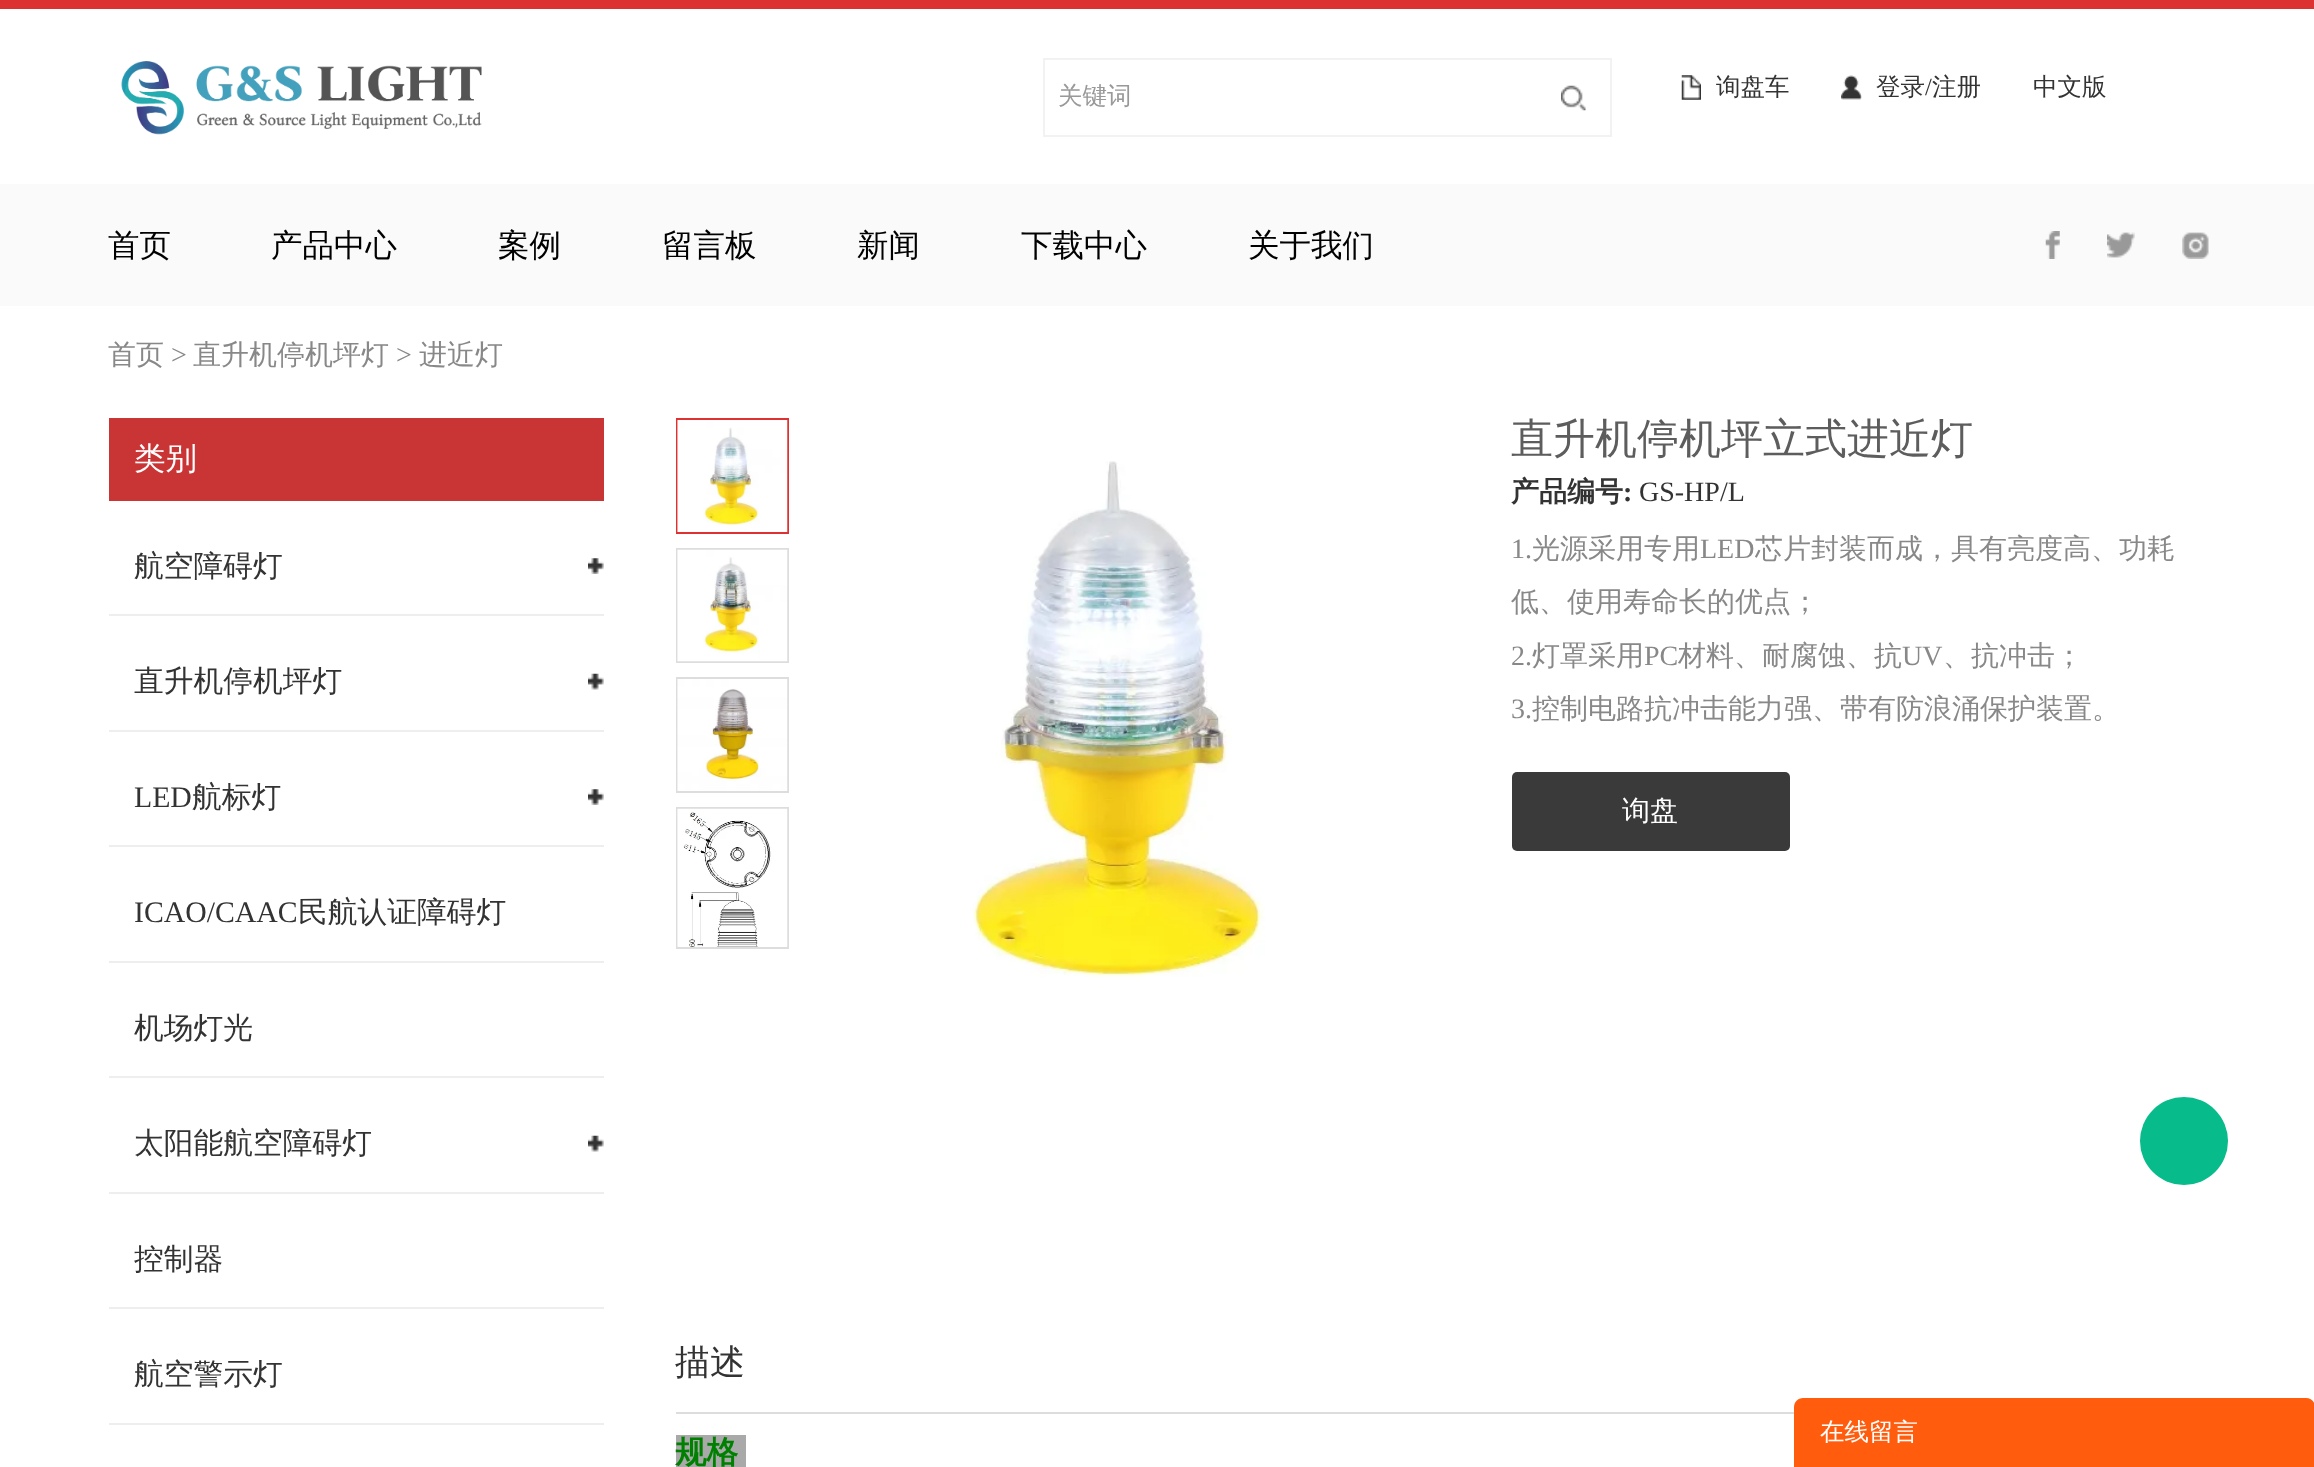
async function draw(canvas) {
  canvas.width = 2314;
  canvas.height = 1467;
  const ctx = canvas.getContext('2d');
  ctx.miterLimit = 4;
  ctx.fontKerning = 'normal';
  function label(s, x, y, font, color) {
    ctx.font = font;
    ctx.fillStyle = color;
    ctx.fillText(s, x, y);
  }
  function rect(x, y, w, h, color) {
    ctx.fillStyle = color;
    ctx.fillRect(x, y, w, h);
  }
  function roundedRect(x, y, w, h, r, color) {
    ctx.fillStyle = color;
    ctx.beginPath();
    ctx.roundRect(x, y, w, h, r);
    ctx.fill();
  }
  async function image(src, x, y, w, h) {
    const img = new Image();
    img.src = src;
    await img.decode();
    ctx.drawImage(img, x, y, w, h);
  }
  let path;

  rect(0, 0, 2314, 1467, '#fff');
  rect(0, 0, 2314, 9, '#dd3232');
  await image('assets/img1.png', 121, 61, 361, 74);
  rect(1043, 58, 569, 2, '#f2f2f2');
  rect(1043, 135, 495, 2, '#f2f2f2');
  rect(1043, 58, 2, 79, '#f2f2f2');
  label('关键词', 1058, 104, '500 24.5px WenQuanYi Zen Hei', '#999');
  await image('assets/img2.png', 1561, 85, 25, 26);
  rect(1610, 58, 2, 79, '#f2f2f2');
  rect(1538, 135, 74, 2, '#f2f2f2');
  await image('assets/img3.png', 1681, 75, 20, 25);
  label('询盘车', 1716, 95, '500 24.5px WenQuanYi Zen Hei', '#333');
  await image('assets/img4.png', 1841, 75, 21, 25);
  label('登录', 1876, 95, '500 24.5px WenQuanYi Zen Hei', '#333');
  label('/', 1925, 95, '24.5px Liberation Serif', '#333');
  label('注册', 1932, 95, '500 24.5px WenQuanYi Zen Hei', '#333');
  label('中文版', 2033, 95, '500 24.5px WenQuanYi Zen Hei', '#333');
  rect(0, 184, 2314, 122, '#fafafa');
  label('首页', 108, 256, '500 31.5px WenQuanYi Zen Hei', '#000');
  label('产品中心', 271, 256, '500 31.5px WenQuanYi Zen Hei', '#000');
  label('案例', 498, 256, '500 31.5px WenQuanYi Zen Hei', '#000');
  label('留言板', 662, 256, '500 31.5px WenQuanYi Zen Hei', '#000');
  label('新闻', 857, 256, '500 31.5px WenQuanYi Zen Hei', '#000');
  label('下载中心', 1021, 256, '500 31.5px WenQuanYi Zen Hei', '#000');
  label('关于我们', 1248, 256, '500 31.5px WenQuanYi Zen Hei', '#000');
  await image('assets/img5.png', 2045, 231, 15, 28);
  await image('assets/img6.png', 2107, 232, 28, 26);
  await image('assets/img7.png', 2182, 232, 27, 27);
  label('首页', 108, 364, '500 28px WenQuanYi Zen Hei', '#888');
  label('>', 171, 364, '28px Liberation Serif', '#888');
  label('直升机停机坪灯', 193, 364, '500 28px WenQuanYi Zen Hei', '#888');
  label('>', 396, 364, '28px Liberation Serif', '#888');
  label('进近灯', 419, 364, '500 28px WenQuanYi Zen Hei', '#888');
  rect(109, 418, 495, 83, '#c93535');
  label('类别', 134, 469, '500 31.5px WenQuanYi Zen Hei', '#fff');
  await image('assets/img8.png', 588, 558, 16, 16);
  rect(109, 614, 495, 2, '#eee');
  label('航空障碍灯', 134, 576, '500 29.75px WenQuanYi Zen Hei', '#333');
  await image('assets/img9.png', 588, 673, 16, 17);
  rect(109, 730, 495, 2, '#eee');
  label('直升机停机坪灯', 134, 691, '500 29.75px WenQuanYi Zen Hei', '#333');
  await image('assets/img8.png', 588, 789, 16, 16);
  rect(109, 845, 495, 2, '#eee');
  label('LED', 134, 807, '29.75px Liberation Serif', '#333');
  label('航标灯', 192, 807, '500 29.75px WenQuanYi Zen Hei', '#333');
  rect(109, 961, 495, 2, '#eee');
  label('ICAO/CAAC', 134, 922, '29.75px Liberation Serif', '#333');
  label('民航认证障碍灯', 298, 922, '500 29.75px WenQuanYi Zen Hei', '#333');
  rect(109, 1076, 495, 2, '#eee');
  label('机场灯光', 134, 1038, '500 29.75px WenQuanYi Zen Hei', '#333');
  await image('assets/img9.png', 588, 1135, 16, 17);
  rect(109, 1192, 495, 2, '#eee');
  label('太阳能航空障碍灯', 134, 1153, '500 29.75px WenQuanYi Zen Hei', '#333');
  rect(109, 1307, 495, 2, '#eee');
  label('控制器', 134, 1269, '500 29.75px WenQuanYi Zen Hei', '#333');
  rect(109, 1423, 495, 2, '#eee');
  label('航空警示灯', 134, 1384, '500 29.75px WenQuanYi Zen Hei', '#333');
  ctx.strokeStyle = '#de3232';
  ctx.lineWidth = 2;
  ctx.strokeRect(677, 419, 111, 114);
  await image('assets/img10.png', 677, 420, 111, 112);
  ctx.strokeStyle = '#ddd';
  ctx.strokeRect(677, 549, 111, 113);
  await image('assets/img11.png', 677, 549, 111, 113);
  ctx.strokeRect(677, 678, 111, 114);
  await image('assets/img12.png', 677, 679, 111, 112);
  ctx.strokeRect(677, 808, 111, 140);
  await image('assets/img13.png', 677, 808, 111, 139);
  await image('assets/img14.png', 973, 461, 292, 517);
  label('直升机停机坪立式进近灯', 1511, 453, '500 42px WenQuanYi Zen Hei', '#5d5d5d');
  label('产品编号', 1511, 501, 'bold 28px WenQuanYi Zen Hei', '#333');
  label(':', 1623, 501, 'bold 28px Liberation Serif', '#333');
  label('GS-HP/L', 1639, 501, '28px Liberation Serif', '#333');
  label('1.', 1511, 558, '28px Liberation Serif', '#888');
  label('光源采用专用', 1532, 558, '500 28px WenQuanYi Zen Hei', '#888');
  label('LED', 1700, 558, '28px Liberation Serif', '#888');
  label('芯片封装而成，具有亮度高、功耗', 1755, 558, '500 28px WenQuanYi Zen Hei', '#888');
  label('低、使用寿命长的优点；', 1511, 611, '500 28px WenQuanYi Zen Hei', '#888');
  label('2.', 1511, 665, '28px Liberation Serif', '#888');
  label('灯罩采用', 1532, 665, '500 28px WenQuanYi Zen Hei', '#888');
  label('PC', 1644, 665, '28px Liberation Serif', '#888');
  label('材料、耐腐蚀、抗', 1678, 665, '500 28px WenQuanYi Zen Hei', '#888');
  label('UV', 1902, 665, '28px Liberation Serif', '#888');
  label('、抗冲击；', 1943, 665, '500 28px WenQuanYi Zen Hei', '#888');
  label('3.', 1511, 718, '28px Liberation Serif', '#888');
  label('控制电路抗冲击能力强、带有防浪涌保护装置。', 1532, 718, '500 28px WenQuanYi Zen Hei', '#888');
  roundedRect(1512, 772, 278, 79, 5, '#3a3a3a');
  label('询盘', 1622, 820, '500 28px WenQuanYi Zen Hei', '#fff');
  rect(676, 1412, 1118, 2, '#ddd');
  label('描述', 675, 1374, '500 35px WenQuanYi Zen Hei', '#333');
  rect(676, 1435, 70, 32, '#a9a9a9');
  label('规格', 675, 1463, 'bold 31.5px WenQuanYi Zen Hei', '#008000');
  ctx.fillStyle = '#07bb8a';
  ctx.beginPath();
  ctx.arc(2184, 1141, 44, 0, 2 * Math.PI);
  ctx.fill();
  ctx.fillStyle = '#ff5d0d';
  path = new Path2D('M1803 1398H2306C2311 1398 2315 1402 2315 1407V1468H1794V1407C1794 1402 1798 1398 1803 1398Z');
  ctx.fill(path);
  label('在线留言', 1820, 1440, '500 24.5px WenQuanYi Zen Hei', '#fff');
}

draw(document.querySelector('canvas'));
